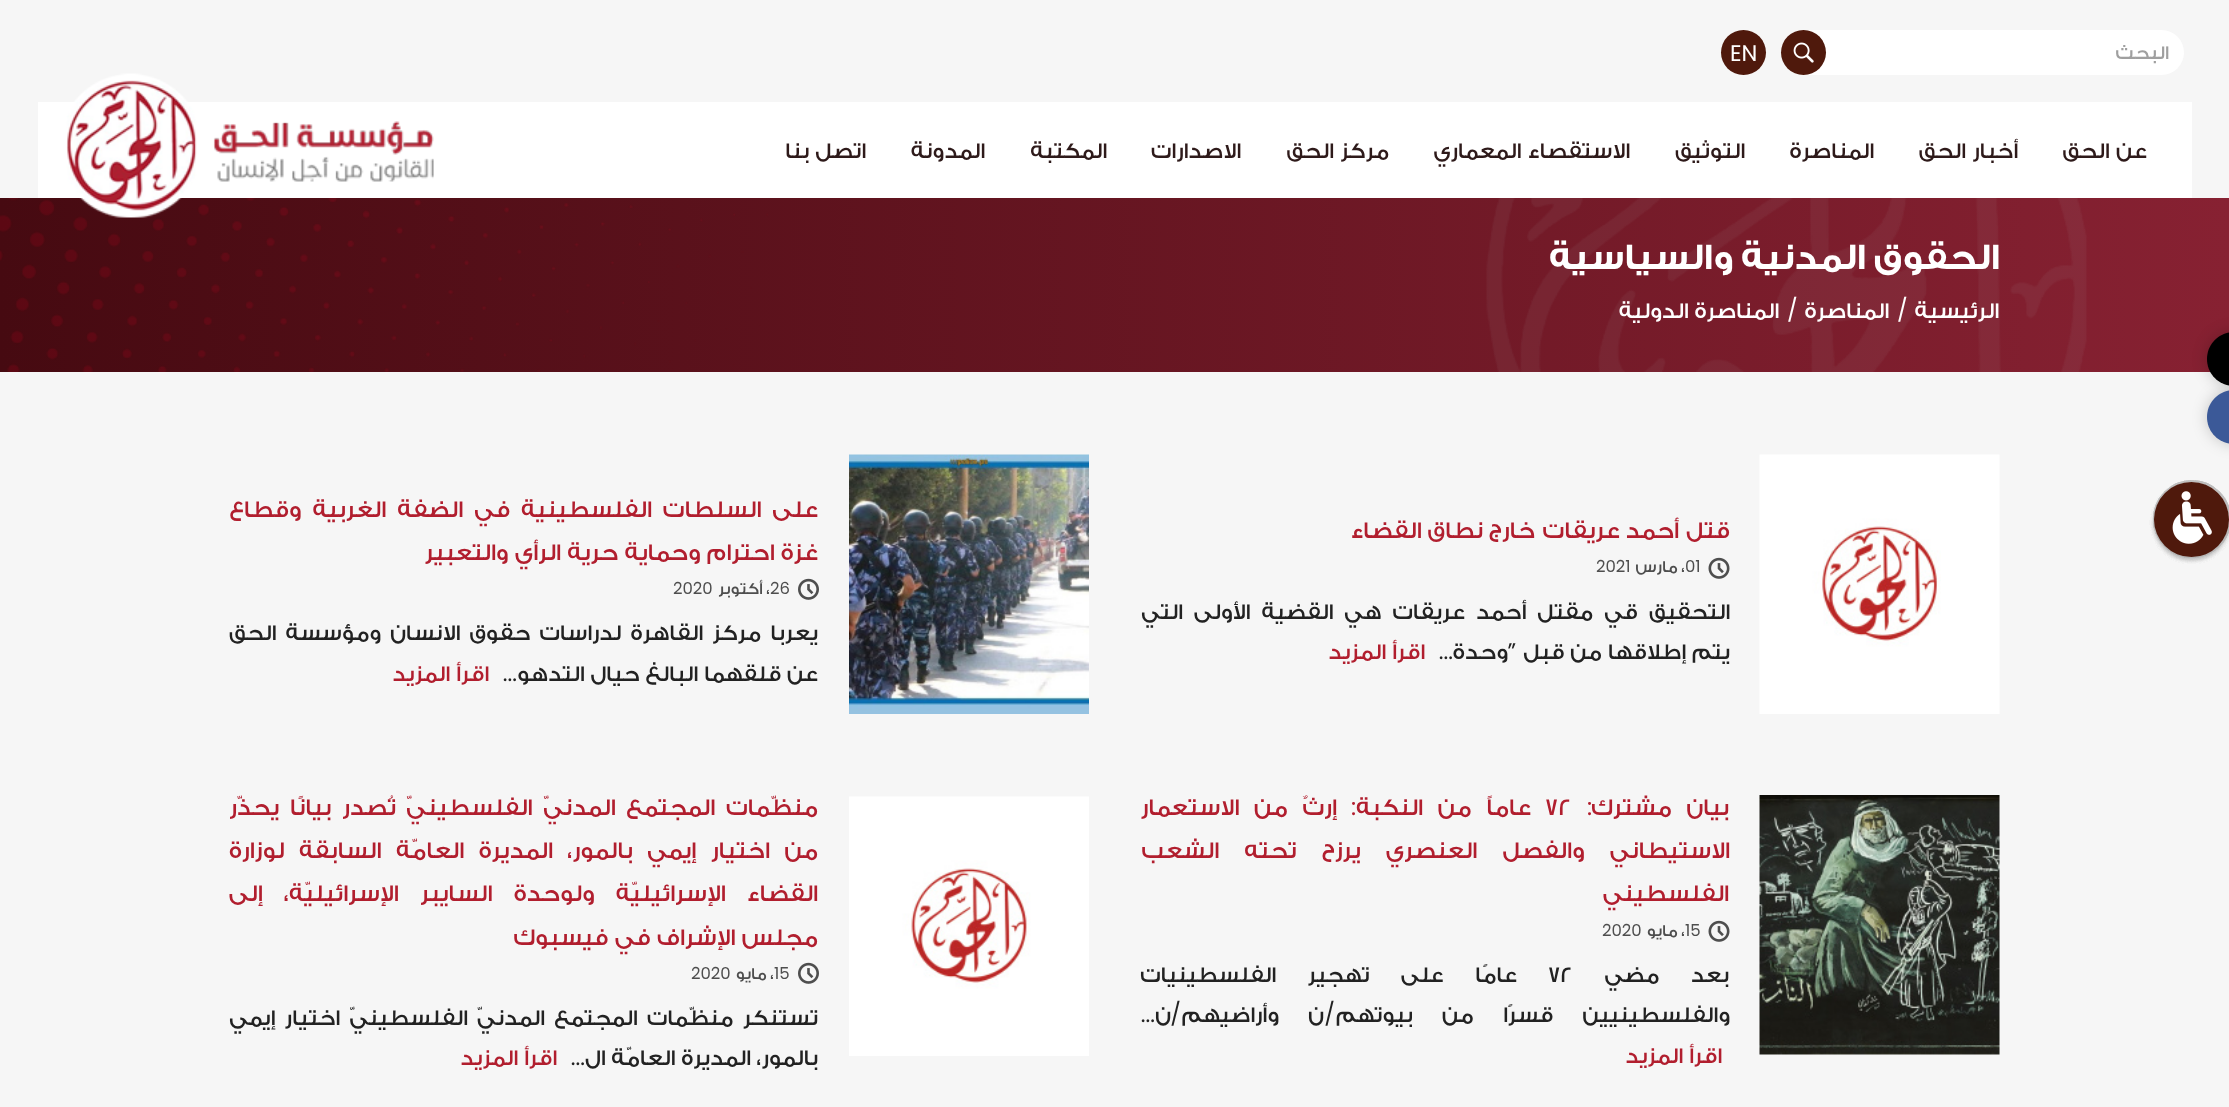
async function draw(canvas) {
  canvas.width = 2229;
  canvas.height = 1107;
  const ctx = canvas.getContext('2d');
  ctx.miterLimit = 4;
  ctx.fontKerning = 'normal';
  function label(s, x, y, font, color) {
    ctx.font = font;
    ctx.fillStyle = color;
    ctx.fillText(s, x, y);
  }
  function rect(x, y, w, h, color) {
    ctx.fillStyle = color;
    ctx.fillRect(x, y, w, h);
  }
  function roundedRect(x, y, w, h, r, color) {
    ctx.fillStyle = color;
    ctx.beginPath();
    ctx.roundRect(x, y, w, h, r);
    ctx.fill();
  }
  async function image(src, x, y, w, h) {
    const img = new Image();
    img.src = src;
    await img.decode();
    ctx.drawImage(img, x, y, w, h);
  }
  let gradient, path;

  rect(0, 0, 2229, 1107, '#f6f6f6');
  roundedRect(1781, 30, 403, 45, 22.5, '#fff');
  ctx.direction = 'rtl';
  label('البحث', 2169, 59, '500 19.5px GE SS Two', '#9f9f9f');
  ctx.fillStyle = '#4f190c';
  ctx.beginPath();
  ctx.arc(1803.5, 52.5, 22.5, 0, 2 * Math.PI);
  ctx.fill();
  await image('assets/img1.png', 1793, 42, 21, 21);
  ctx.beginPath();
  ctx.arc(1743.5, 52.5, 22.5, 0, 2 * Math.PI);
  ctx.fill();
  ctx.direction = 'ltr';
  label('EN', 1730, 61, '22.5px Poppins', '#fff');
  rect(38, 102, 2154, 96, '#fff');
  ctx.wordSpacing = '1px';
  ctx.direction = 'rtl';
  label('عن الحق', 2147, 158, '500 22.5px GE SS Two', '#2e1a1a');
  label('أخبار الحق', 2018, 158, '500 22.5px GE SS Two', '#2e1a1a');
  ctx.wordSpacing = '0px';
  label('المناصرة', 1874, 158, '500 22.5px GE SS Two', '#2e1a1a');
  label('التوثيق', 1745, 158, '500 22.5px GE SS Two', '#2e1a1a');
  ctx.wordSpacing = '1px';
  label('الاستقصاء المعماري', 1630, 158, '500 22.5px GE SS Two', '#2e1a1a');
  label('مركز الحق', 1389, 158, '500 22.5px GE SS Two', '#2e1a1a');
  ctx.wordSpacing = '0px';
  label('الاصدارات', 1241, 158, '500 22.5px GE SS Two', '#2e1a1a');
  label('المكتبة', 1107, 158, '500 22.5px GE SS Two', '#2e1a1a');
  label('المدونة', 985, 158, '500 22.5px GE SS Two', '#2e1a1a');
  ctx.wordSpacing = '0.5px';
  label('اتصل بنا', 866, 158, '500 22.5px GE SS Two', '#2e1a1a');
  gradient = ctx.createLinearGradient(2229, 285, 0, 285);
  gradient.addColorStop(0, '#872132');
  gradient.addColorStop(1, '#460a11');
  ctx.fillStyle = gradient;
  ctx.fillRect(0, 198, 2229, 174);
  await image('assets/img4.png', 0, 198, 768, 174);
  await image('assets/img2.png', 66, 73, 368, 145);
  await image('assets/img3.png', 1486, 198, 601, 174);
  ctx.wordSpacing = '0px';
  label('الحقوق المدنية والسياسية', 2000, 269, 'bold 37.5px GE SS Two', '#fff');
  label('الرئيسية', 1999, 318, '500 22.5px GE SS Two', '#fff');
  ctx.direction = 'ltr';
  label('/', 1897, 318, '22.5px Poppins', '#fff');
  ctx.direction = 'rtl';
  label('المناصرة', 1889, 318, '500 22.5px GE SS Two', '#fff');
  ctx.direction = 'ltr';
  label('/', 1787, 318, '22.5px Poppins', '#fff');
  ctx.wordSpacing = '0.5px';
  ctx.direction = 'rtl';
  label('المناصرة الدولية', 1779, 318, '500 22.5px GE SS Two', '#fff');
  ctx.fillStyle = '#00000033';
  ctx.filter = 'blur(7.5px)';
  ctx.beginPath();
  ctx.roundRect(2207, 332, 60, 54, 27);
  ctx.fill();
  ctx.filter = 'none';
  ctx.fillStyle = '#000';
  path = new Path2D('M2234 332H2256V386H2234C2219 386 2207 374 2207 359C2207 344 2219 332 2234 332Z');
  ctx.fill(path);
  ctx.fillStyle = '#00000033';
  ctx.filter = 'blur(7.5px)';
  ctx.beginPath();
  ctx.roundRect(2207, 390, 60, 54, 27);
  ctx.fill();
  ctx.filter = 'none';
  ctx.fillStyle = '#3b5998';
  path = new Path2D('M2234 390H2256V444H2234C2219 444 2207 432 2207 417C2207 402 2219 390 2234 390Z');
  ctx.fill(path);
  ctx.fillStyle = '#8c8c8c33';
  ctx.filter = 'blur(2px)';
  ctx.beginPath();
  ctx.roundRect(2154, 485, 75, 75, 37.5);
  ctx.fill();
  ctx.filter = 'none';
  ctx.beginPath();
  ctx.arc(2192, 519, 38, 0, 2 * Math.PI);
  ctx.strokeStyle = '#b7b7b733';
  ctx.lineWidth = 2;
  ctx.stroke();
  ctx.filter = 'blur(2px)';
  ctx.beginPath();
  ctx.roundRect(2154, 485, 75, 75, 37.5);
  ctx.fill();
  ctx.filter = 'none';
  ctx.beginPath();
  ctx.arc(2192, 519, 38, 0, 2 * Math.PI);
  ctx.stroke();
  ctx.filter = 'blur(2px)';
  ctx.beginPath();
  ctx.roundRect(2154, 485, 75, 75, 37.5);
  ctx.fill();
  ctx.filter = 'none';
  ctx.beginPath();
  ctx.arc(2192, 519, 38, 0, 2 * Math.PI);
  ctx.stroke();
  ctx.filter = 'blur(2px)';
  ctx.beginPath();
  ctx.roundRect(2154, 485, 75, 75, 37.5);
  ctx.fill();
  ctx.filter = 'none';
  ctx.beginPath();
  ctx.arc(2192, 519, 38, 0, 2 * Math.PI);
  ctx.stroke();
  ctx.beginPath();
  ctx.arc(2192, 519, 38, 0, 2 * Math.PI);
  ctx.stroke();
  ctx.beginPath();
  ctx.arc(2192, 519, 38, 0, 2 * Math.PI);
  ctx.stroke();
  ctx.beginPath();
  ctx.arc(2192, 519, 38, 0, 2 * Math.PI);
  ctx.stroke();
  ctx.beginPath();
  ctx.arc(2192, 519, 38, 0, 2 * Math.PI);
  ctx.stroke();
  ctx.beginPath();
  ctx.arc(2192, 519, 38, 0, 2 * Math.PI);
  ctx.stroke();
  ctx.fillStyle = '#4f190c';
  ctx.beginPath();
  ctx.arc(2191.5, 519.5, 37.5, 0, 2 * Math.PI);
  ctx.fill();
  await image('assets/img5.png', 2172, 491, 40, 53);
  await image('assets/img6.png', 1759, 454, 241, 260);
  ctx.wordSpacing = '0px';
  label('قتل', 1730, 538, '500 24px GE SS Two', '#b11e2e');
  label('أحمد عريقات', 1679, 538, '500 24px GE SS Two', '#b11e2e');
  label('خارج نطاق القضاء', 1535, 538, '500 24px GE SS Two', '#b11e2e');
  await image('assets/img7.png', 1708, 557, 22, 22);
  ctx.direction = 'ltr';
  label('01', 1685, 572, '16.5px Poppins', '#4e4e4e');
  ctx.direction = 'rtl';
  label('، مارس', 1685, 572, '500 16.5px GE SS Two', '#4e4e4e');
  ctx.direction = 'ltr';
  label('2021', 1596, 572, '16.5px Poppins', '#4e4e4e');
  ctx.wordSpacing = '5.75px';
  ctx.direction = 'rtl';
  label('التحقيق قي مقتل أحمد عريقات هي القضية الأولى التي', 1730, 619, '500 22.5px GE SS Two', '#222');
  ctx.wordSpacing = '0.5px';
  label('يتم إطلاقها من قبل', 1730, 659, '500 22.5px GE SS Two', '#222');
  ctx.wordSpacing = '0px';
  label('”', 1516, 659, '22.5px Poppins', '#222');
  label('وحدة', 1508, 659, '500 22.5px GE SS Two', '#222');
  label('...', 1453, 659, '22.5px Poppins', '#222');
  ctx.wordSpacing = '0.5px';
  label('اقرأ المزيد', 1425, 659, '500 22.5px GE SS Two', '#b11e2e');
  await image('assets/img8.png', 849, 454, 240, 260);
  ctx.wordSpacing = '5.25px';
  label('على السلطات الفلسطينية في الضفة الغربية وقطاع', 818, 517, '500 24px GE SS Two', '#b11e2e');
  ctx.wordSpacing = '0.5px';
  label('غزة احترام وحماية حرية الرأي والتعبير', 818, 560, '500 24px GE SS Two', '#b11e2e');
  await image('assets/img9.png', 798, 578, 21, 22);
  ctx.wordSpacing = '0px';
  ctx.direction = 'ltr';
  label('26', 770, 594, '16.5px Poppins', '#4e4e4e');
  ctx.direction = 'rtl';
  label('، أكتوبر', 770, 594, '500 16.5px GE SS Two', '#4e4e4e');
  ctx.direction = 'ltr';
  label('2020', 673, 594, '16.5px Poppins', '#4e4e4e');
  ctx.wordSpacing = '3.75px';
  ctx.direction = 'rtl';
  label('يعربا مركز القاهرة لدراسات حقوق الانسان ومؤسسة الحق', 818, 640, '500 22.5px GE SS Two', '#222');
  ctx.wordSpacing = '0.5px';
  label('عن قلقهما البالغ حيال التدهو', 818, 681, '500 22.5px GE SS Two', '#222');
  ctx.wordSpacing = '0px';
  label('...', 517, 681, '22.5px Poppins', '#222');
  ctx.wordSpacing = '0.5px';
  label('اقرأ المزيد', 489, 681, '500 22.5px GE SS Two', '#b11e2e');
  await image('assets/img10.png', 1759, 795, 241, 260);
  ctx.wordSpacing = '9px';
  label('بيان مشترك', 1729, 815, '500 24px GE SS Two', '#b11e2e');
  ctx.wordSpacing = '0px';
  label(':', 1592, 815, '24px Poppins', '#b11e2e');
  ctx.direction = 'ltr';
  label('72', 1545, 815, '500 24px GE SS Two', '#b11e2e');
  ctx.wordSpacing = '9px';
  ctx.direction = 'rtl';
  label('عاماً من النكبة', 1531, 815, '500 24px GE SS Two', '#b11e2e');
  ctx.wordSpacing = '0px';
  label(':', 1356, 815, '24px Poppins', '#b11e2e');
  ctx.wordSpacing = '9px';
  label('إرثٌ من الاستعمار', 1337, 815, '500 24px GE SS Two', '#b11e2e');
  ctx.wordSpacing = '19.5px';
  label('الاستيطاني والفصل العنصري يرزح تحته الشعب', 1730, 858, '500 24px GE SS Two', '#b11e2e');
  ctx.wordSpacing = '0px';
  label('الفلسطيني', 1729, 901, '500 24px GE SS Two', '#b11e2e');
  await image('assets/img7.png', 1708, 920, 22, 22);
  ctx.direction = 'ltr';
  label('15', 1685, 936, '16.5px Poppins', '#4e4e4e');
  ctx.direction = 'rtl';
  label('، مايو', 1685, 936, '500 16.5px GE SS Two', '#4e4e4e');
  ctx.direction = 'ltr';
  label('2020', 1602, 936, '16.5px Poppins', '#4e4e4e');
  ctx.wordSpacing = '26px';
  ctx.direction = 'rtl';
  label('بعد مضي', 1729, 982, '500 22.5px GE SS Two', '#222');
  ctx.wordSpacing = '0px';
  ctx.direction = 'ltr';
  label('72', 1548, 982, '500 22.5px GE SS Two', '#222');
  ctx.wordSpacing = '26px';
  ctx.direction = 'rtl';
  label('عامًا على تهجير الفلسطينيات', 1517, 982, '500 22.5px GE SS Two', '#222');
  ctx.wordSpacing = '24px';
  label('والفلسطينيين قسرًا من بيوتهم', 1730, 1022, '500 22.5px GE SS Two', '#222');
  ctx.wordSpacing = '0px';
  label('/', 1335, 1022, '22.5px Poppins', '#222');
  ctx.wordSpacing = '24px';
  label('ن وأراضيهم', 1324, 1022, '500 22.5px GE SS Two', '#222');
  ctx.wordSpacing = '0px';
  label('/', 1181, 1022, '22.5px Poppins', '#222');
  label('ن', 1171, 1022, '500 22.5px GE SS Two', '#222');
  label('...', 1155, 1022, '22.5px Poppins', '#222');
  ctx.wordSpacing = '0.5px';
  label('اقرأ المزيد', 1722, 1063, '500 22.5px GE SS Two', '#b11e2e');
  await image('assets/img11.png', 849, 796, 240, 260);
  ctx.wordSpacing = '5px';
  label('منظّمات المجتمع المدنيّ الفلسطينيّ', 818, 815, '500 24px GE SS Two', '#b11e2e');
  label('تُصدر بيانًا يحذّر', 396, 815, '500 24px GE SS Two', '#b11e2e');
  ctx.wordSpacing = '8.75px';
  label('من اختيار إيمي بالمور، المديرة العامّة السابقة لوزارة', 818, 858, '500 24px GE SS Two', '#b11e2e');
  ctx.wordSpacing = '15.5px';
  label('القضاء الإسرائيليّة ولوحدة السايبر الإسرائيليّة، إلى', 818, 901, '500 24px GE SS Two', '#b11e2e');
  ctx.wordSpacing = '0.5px';
  label('مجلس الإشراف في فيسبوك', 818, 945, '500 24px GE SS Two', '#b11e2e');
  await image('assets/img9.png', 798, 962, 21, 22);
  ctx.wordSpacing = '0px';
  ctx.direction = 'ltr';
  label('15', 774, 979, '16.5px Poppins', '#4e4e4e');
  ctx.direction = 'rtl';
  label('، مايو', 774, 979, '500 16.5px GE SS Two', '#4e4e4e');
  ctx.direction = 'ltr';
  label('2020', 691, 979, '16.5px Poppins', '#4e4e4e');
  ctx.wordSpacing = '4px';
  ctx.direction = 'rtl';
  label('تستنكر منظّمات المجتمع المدنيّ الفلسطينيّ اختيار إيمي', 818, 1025, '500 22.5px GE SS Two', '#222');
  ctx.wordSpacing = '0.5px';
  label('بالمور، المديرة العامّة ال', 818, 1065, '500 22.5px GE SS Two', '#222');
  ctx.wordSpacing = '0px';
  label('...', 585, 1065, '22.5px Poppins', '#222');
  ctx.wordSpacing = '0.5px';
  label('اقرأ المزيد', 557, 1065, '500 22.5px GE SS Two', '#b11e2e');
}

draw(document.querySelector('canvas'));
